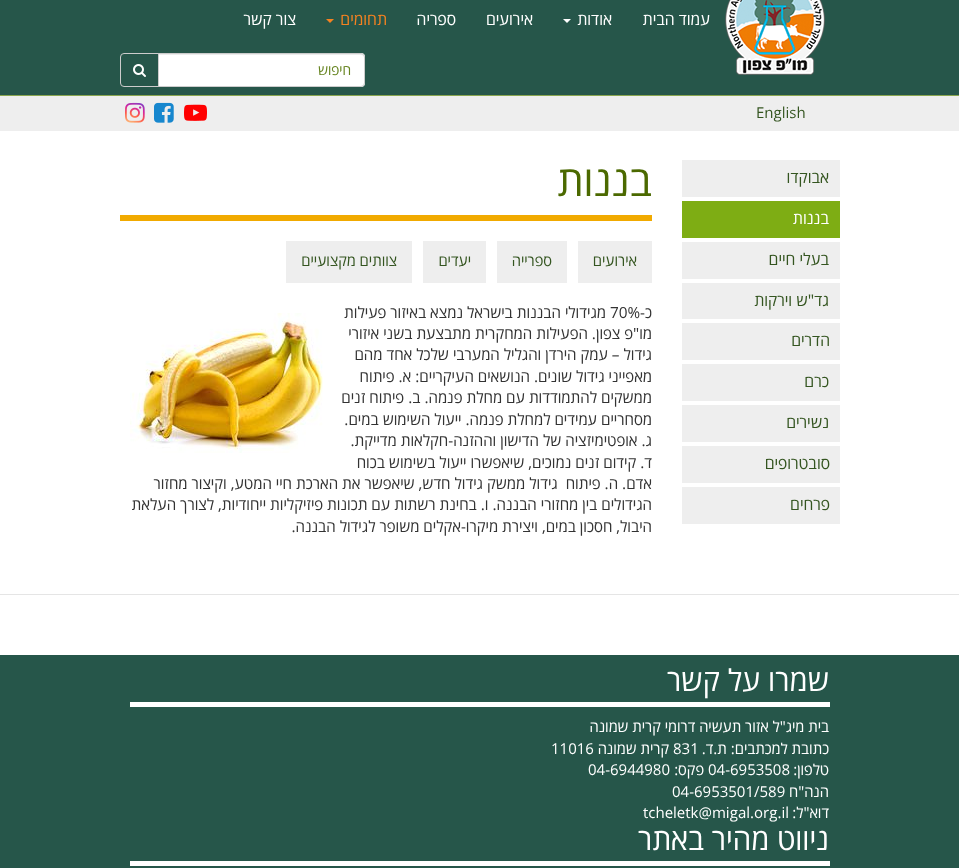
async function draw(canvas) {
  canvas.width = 959;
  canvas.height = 868;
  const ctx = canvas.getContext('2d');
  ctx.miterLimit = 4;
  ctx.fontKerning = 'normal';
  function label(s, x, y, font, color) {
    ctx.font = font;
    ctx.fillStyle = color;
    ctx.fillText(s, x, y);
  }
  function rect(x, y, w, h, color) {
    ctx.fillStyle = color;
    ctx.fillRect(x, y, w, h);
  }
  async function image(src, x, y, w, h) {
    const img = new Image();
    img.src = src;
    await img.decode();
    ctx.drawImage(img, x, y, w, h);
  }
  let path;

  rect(0, 0, 959, 868, '#fff');
  rect(0, 0, 959, 95, '#26564a');
  rect(0, 95, 959, 1, '#89a54e');
  await image('assets/img1.png', 725, 0, 100, 75);
  ctx.direction = 'rtl';
  label('עמוד הבית', 710, 25, '16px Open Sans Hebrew', '#fff');
  label('אודות', 612, 25, '16px Open Sans Hebrew', '#fff');
  path = new Path2D('M563 19H571L567 23Z');
  ctx.fill(path);
  label('אירועים', 533, 25, '16px Open Sans Hebrew', '#fff');
  label('ספריה', 456, 25, '16px Open Sans Hebrew', '#fff');
  label('תחומים', 387, 25, '16px Open Sans Hebrew', '#f58221');
  path = new Path2D('M326 19H334L330 23Z');
  ctx.fill(path);
  label('צור קשר', 296, 25, '16px Open Sans Hebrew', '#fff');
  ctx.beginPath();
  ctx.roundRect(158, 53, 207, 34, [0, 4, 4, 0]);
  ctx.fill();
  ctx.fillStyle = '#ececec';
  path = new Path2D('M159 55H361C363 55 364 56 364 58C364 56 364 55 362 54H159Z');
  ctx.fill(path);
  ctx.beginPath();
  ctx.roundRect(158.5, 53.5, 206, 33, [0, 3.5, 3.5, 0]);
  ctx.strokeStyle = '#ccc';
  ctx.stroke();
  label('חיפוש', 351, 75, '14px Open Sans Hebrew', '#668420');
  ctx.fillStyle = '#26564a';
  ctx.beginPath();
  ctx.roundRect(120.5, 53.5, 38, 33, [3.5, 0, 0, 3.5]);
  ctx.fill();
  ctx.stroke();
  await image('assets/img2.png', 133, 64, 13, 13);
  rect(0, 96, 959, 35, '#eee');
  ctx.direction = 'ltr';
  label('English', 756, 118, '15px Open Sans Hebrew', '#345520');
  await image('assets/img3.png', 184, 104, 23, 17);
  await image('assets/img4.png', 154, 102, 20, 21);
  await image('assets/img5.png', 125, 102, 20, 21);
  rect(682, 160, 158, 37, '#eee');
  ctx.direction = 'rtl';
  label('אבוקדו', 829, 183, '16px Open Sans Hebrew', '#345520');
  rect(682, 201, 158, 37, '#7ead14');
  label('בננות', 829, 224, '16px Open Sans Hebrew', '#fff');
  rect(682, 242, 158, 37, '#eee');
  label('בעלי חיים', 829, 265, '16px Open Sans Hebrew', '#345520');
  rect(682, 283, 158, 36, '#eee');
  label('גד"ש וירקות', 829, 306, '16px Open Sans Hebrew', '#345520');
  rect(682, 323, 158, 37, '#eee');
  label('הדרים', 830, 346, '16px Open Sans Hebrew', '#345520');
  rect(682, 364, 158, 37, '#eee');
  label('כרם', 829, 387, '16px Open Sans Hebrew', '#345520');
  rect(682, 405, 158, 37, '#eee');
  label('נשירים', 829, 428, '16px Open Sans Hebrew', '#345520');
  rect(682, 446, 158, 37, '#eee');
  label('סובטרופים', 830, 469, '16px Open Sans Hebrew', '#345520');
  rect(682, 487, 158, 37, '#eee');
  label('פרחים', 830, 510, '16px Open Sans Hebrew', '#345520');
  rect(120, 215, 532, 6, '#f1aa00');
  label('בננות', 652, 196, '42px Open Sans Hebrew', '#4b6900');
  rect(578, 241, 74, 42, '#eee');
  label('אירועים', 637, 266, '15px Open Sans Hebrew', '#345520');
  rect(497, 241, 70, 42, '#eee');
  label('ספרייה', 552, 266, '15px Open Sans Hebrew', '#345520');
  rect(423, 241, 63, 42, '#eee');
  label('יעדים', 471, 266, '15px Open Sans Hebrew', '#345520');
  rect(286, 241, 126, 42, '#eee');
  label('צוותים מקצועיים', 397, 266, '15px Open Sans Hebrew', '#345520');
  label('כ-', 652, 318, '15.35px Open Sans Hebrew', '#333');
  ctx.direction = 'ltr';
  label('70%', 610, 318, '15.35px Open Sans Hebrew', '#333');
  ctx.direction = 'rtl';
  label('מגידולי הבננות בישראל נמצא באיזור פעילות', 606, 318, '15.35px Open Sans Hebrew', '#333');
  label('מו"פ צפון. הפעילות המחקרית מתבצעת בשני איזורי', 652, 339, '15.35px Open Sans Hebrew', '#333');
  label('גידול – עמק הירדן והגליל המערבי שלכל אחד מהם', 652, 360, '15.35px Open Sans Hebrew', '#333');
  label('מאפייני גידול שונים. הנושאים העיקריים: א. פיתוח', 652, 382, '15.35px Open Sans Hebrew', '#333');
  label('ממשקים להתמודדות עם מחלת פנמה. ב. פיתוח זנים', 652, 403, '15.35px Open Sans Hebrew', '#333');
  label('מסחריים עמידים למחלת פנמה. ייעול השימוש במים.', 652, 425, '15.35px Open Sans Hebrew', '#333');
  label('ג. אופטימיזציה של הדישון וההזנה-חקלאות מדייקת.', 652, 446, '15.35px Open Sans Hebrew', '#333');
  label('ד. קידום זנים נמוכים, שיאפשרו ייעול בשימוש בכוח', 652, 468, '15.35px Open Sans Hebrew', '#333');
  label('אדם. ה. פיתוח  גידול ממשק גידול חדש, שיאפשר את הארכת חיי המטע, וקיצור מחזור', 652, 489, '15.35px Open Sans Hebrew', '#333');
  label('הגידולים בין מחזורי הבננה. ו. בחינת רשתות עם תכונות פיזיקליות ייחודיות, לצורך העלאת', 652, 510, '15.35px Open Sans Hebrew', '#333');
  label('היבול, חסכון במים, ויצירת מיקרו-אקלים משופר לגידול הבננה.', 652, 532, '15.35px Open Sans Hebrew', '#333');
  await image('assets/img6.png', 130, 313, 193, 140);
  rect(0, 594, 959, 1, '#e5e5e5');
  rect(0, 655, 959, 213, '#26564a');
  rect(130, 702, 700, 5, '#fff');
  label('שמרו על קשר', 829, 691, '30px Open Sans Hebrew', '#fff');
  label('בית מיג"ל אזור תעשיה דרומי קרית שמונה', 829, 732, '15px Open Sans Hebrew', '#fff');
  label('כתובת למכתבים: ת.ד.', 829, 754, '15px Open Sans Hebrew', '#fff');
  ctx.direction = 'ltr';
  label('831', 673, 754, '15px Open Sans Hebrew', '#fff');
  ctx.direction = 'rtl';
  label('קרית שמונה', 669, 754, '15px Open Sans Hebrew', '#fff');
  ctx.direction = 'ltr';
  label('11016', 551, 754, '15px Open Sans Hebrew', '#fff');
  ctx.direction = 'rtl';
  label('טלפון:', 829, 775, '15px Open Sans Hebrew', '#fff');
  ctx.direction = 'ltr';
  label('04-6953508', 708, 775, '15px Open Sans Hebrew', '#fff');
  ctx.direction = 'rtl';
  label('פקס:', 704, 775, '15px Open Sans Hebrew', '#fff');
  ctx.direction = 'ltr';
  label('04-6944980', 588, 775, '15px Open Sans Hebrew', '#fff');
  ctx.direction = 'rtl';
  label('הנה"ח', 829, 797, '15px Open Sans Hebrew', '#fff');
  ctx.direction = 'ltr';
  label('04-6953501/589', 672, 797, '15px Open Sans Hebrew', '#fff');
  ctx.direction = 'rtl';
  label('דוא"ל:', 829, 818, '15px Open Sans Hebrew', '#fff');
  ctx.direction = 'ltr';
  label('tcheletk@migal.org.il', 643, 818, '15px Open Sans Hebrew', '#fff');
  rect(130, 861, 700, 5, '#fff');
  ctx.direction = 'rtl';
  label('ניווט מהיר באתר', 829, 850, '30px Open Sans Hebrew', '#fff');
}

draw(document.querySelector('canvas'));
